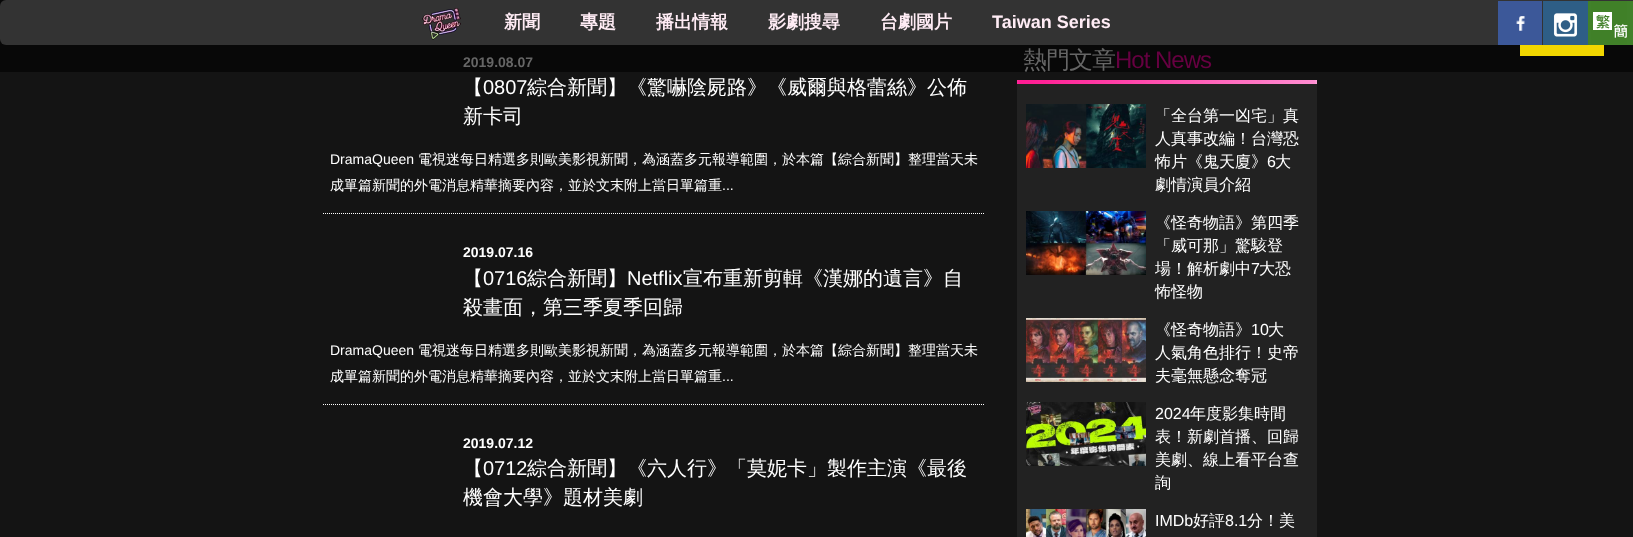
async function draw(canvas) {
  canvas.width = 1633;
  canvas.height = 537;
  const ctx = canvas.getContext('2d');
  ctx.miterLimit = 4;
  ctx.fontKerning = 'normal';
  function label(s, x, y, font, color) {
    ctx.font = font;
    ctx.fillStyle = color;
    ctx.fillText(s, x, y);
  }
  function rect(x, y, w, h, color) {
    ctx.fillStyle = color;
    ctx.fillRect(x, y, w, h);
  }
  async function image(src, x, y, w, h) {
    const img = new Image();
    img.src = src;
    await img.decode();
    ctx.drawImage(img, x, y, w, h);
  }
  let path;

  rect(0, 0, 1633, 537, '#141414');
  rect(0, 0, 1633, 72, '#080808');
  ctx.fillStyle = '#333';
  ctx.beginPath();
  ctx.roundRect(0, 0, 1633, 45, [6, 0, 0, 6]);
  ctx.fill();
  await image('assets/img1.png', 422, 8, 39, 32);
  label('新聞', 504, 28, 'bold 18px WenQuanYi Zen Hei', '#ffecf5');
  label('專題', 580, 28, 'bold 18px WenQuanYi Zen Hei', '#ffecf5');
  label('播出情報', 656, 28, 'bold 18px WenQuanYi Zen Hei', '#ffecf5');
  label('影劇搜尋', 768, 28, 'bold 18px WenQuanYi Zen Hei', '#ffecf5');
  label('台劇國片', 880, 28, 'bold 18px WenQuanYi Zen Hei', '#ffecf5');
  label('Taiwan Series', 992, 28, 'bold 18px Liberation Sans', '#ffecf5');
  await image('assets/img2.png', 1498, 1, 44, 44);
  await image('assets/img3.png', 1543, 1, 45, 44);
  await image('assets/img4.png', 1588, 1, 45, 44);
  path = new Path2D('M323 213.5H985');
  ctx.strokeStyle = '#fff';
  ctx.setLineDash([1, 1]);
  ctx.stroke(path);
  label('2019.08.07', 463, 67, 'bold 14px Liberation Sans', '#666');
  label('【', 463, 94, '500 20px WenQuanYi Zen Hei', '#fff');
  label('0807', 483, 94, '20px Liberation Sans', '#fff');
  label('綜合新聞】《驚嚇陰屍路》《威爾與格蕾絲》公佈', 527, 94, '500 20px WenQuanYi Zen Hei', '#fff');
  label('新卡司', 463, 123, '500 20px WenQuanYi Zen Hei', '#fff');
  label('DramaQueen', 330, 164, '14px Liberation Sans', '#fff');
  label('電視迷每日精選多則歐美影視新聞，為涵蓋多元報導範圍，於本篇【綜合新聞】整理當天未', 418, 164, '500 14px WenQuanYi Zen Hei', '#fff');
  label('成單篇新聞的外電消息精華摘要內容，並於文末附上當日單篇重', 330, 190, '500 14px WenQuanYi Zen Hei', '#fff');
  label('...', 722, 190, '14px Liberation Sans', '#fff');
  path = new Path2D('M323 404.5H985');
  ctx.stroke(path);
  label('2019.07.16', 463, 257, 'bold 14px Liberation Sans', '#fff');
  label('【', 463, 285, '500 20px WenQuanYi Zen Hei', '#fff');
  label('0716', 483, 285, '20px Liberation Sans', '#fff');
  label('綜合新聞】', 527, 285, '500 20px WenQuanYi Zen Hei', '#fff');
  label('Netflix', 627, 285, '20px Liberation Sans', '#fff');
  label('宣布重新剪輯《漢娜的遺言》自', 683, 285, '500 20px WenQuanYi Zen Hei', '#fff');
  label('殺畫面，第三季夏季回歸', 463, 314, '500 20px WenQuanYi Zen Hei', '#fff');
  label('DramaQueen', 330, 355, '14px Liberation Sans', '#fff');
  label('電視迷每日精選多則歐美影視新聞，為涵蓋多元報導範圍，於本篇【綜合新聞】整理當天未', 418, 355, '500 14px WenQuanYi Zen Hei', '#fff');
  label('成單篇新聞的外電消息精華摘要內容，並於文末附上當日單篇重', 330, 381, '500 14px WenQuanYi Zen Hei', '#fff');
  label('...', 722, 381, '14px Liberation Sans', '#fff');
  label('2019.07.12', 463, 448, 'bold 14px Liberation Sans', '#fff');
  label('【', 463, 475, '500 20px WenQuanYi Zen Hei', '#fff');
  label('0712', 483, 475, '20px Liberation Sans', '#fff');
  label('綜合新聞】《六人行》「莫妮卡」製作主演《最後', 527, 475, '500 20px WenQuanYi Zen Hei', '#fff');
  label('機會大學》題材美劇', 463, 504, '500 20px WenQuanYi Zen Hei', '#fff');
  await image('assets/img5.png', 1017, 80, 300, 4);
  ctx.letterSpacing = '-1px';
  label('熱門文章', 1023, 68, '500 24px WenQuanYi Zen Hei', '#666');
  label('Hot News', 1115, 68, '24px Liberation Sans', '#660041');
  rect(1017, 84, 300, 453, '#222');
  await image('assets/img6.png', 1026, 104, 120, 64);
  ctx.letterSpacing = '0px';
  label('「全台第一凶宅」真', 1155, 121, '500 16px WenQuanYi Zen Hei', '#fff');
  label('人真事改編！台灣恐', 1155, 144, '500 16px WenQuanYi Zen Hei', '#fff');
  label('怖片《鬼天廈》', 1155, 167, '500 16px WenQuanYi Zen Hei', '#fff');
  label('6', 1267, 167, '16px Liberation Sans', '#fff');
  label('大', 1275, 167, '500 16px WenQuanYi Zen Hei', '#fff');
  label('劇情演員介紹', 1155, 190, '500 16px WenQuanYi Zen Hei', '#fff');
  await image('assets/img7.png', 1026, 211, 120, 64);
  label('《怪奇物語》第四季', 1155, 228, '500 16px WenQuanYi Zen Hei', '#fff');
  label('「威可那」驚駭登', 1155, 251, '500 16px WenQuanYi Zen Hei', '#fff');
  label('場！解析劇中', 1155, 274, '500 16px WenQuanYi Zen Hei', '#fff');
  label('7', 1251, 274, '16px Liberation Sans', '#fff');
  label('大恐', 1259, 274, '500 16px WenQuanYi Zen Hei', '#fff');
  label('怖怪物', 1155, 297, '500 16px WenQuanYi Zen Hei', '#fff');
  await image('assets/img8.png', 1026, 318, 120, 64);
  label('《怪奇物語》', 1155, 335, '500 16px WenQuanYi Zen Hei', '#fff');
  label('10', 1251, 335, '16px Liberation Sans', '#fff');
  label('大', 1268, 335, '500 16px WenQuanYi Zen Hei', '#fff');
  label('人氣角色排行！史帝', 1155, 358, '500 16px WenQuanYi Zen Hei', '#fff');
  label('夫毫無懸念奪冠', 1155, 381, '500 16px WenQuanYi Zen Hei', '#fff');
  await image('assets/img9.png', 1026, 402, 120, 64);
  label('2024', 1155, 419, '16px Liberation Sans', '#fff');
  label('年度影集時間', 1190, 419, '500 16px WenQuanYi Zen Hei', '#fff');
  label('表！新劇首播、回歸', 1155, 442, '500 16px WenQuanYi Zen Hei', '#fff');
  label('美劇、線上看平台查', 1155, 465, '500 16px WenQuanYi Zen Hei', '#fff');
  label('詢', 1155, 488, '500 16px WenQuanYi Zen Hei', '#fff');
  await image('assets/img10.png', 1026, 509, 120, 28);
  label('IMDb', 1155, 526, '16px Liberation Sans', '#fff');
  label('好評', 1193, 526, '500 16px WenQuanYi Zen Hei', '#fff');
  label('8.1', 1225, 526, '16px Liberation Sans', '#fff');
  label('分！美', 1247, 526, '500 16px WenQuanYi Zen Hei', '#fff');
  rect(1520, 45, 84, 11, '#f1d600');
}

draw(document.querySelector('canvas'));
